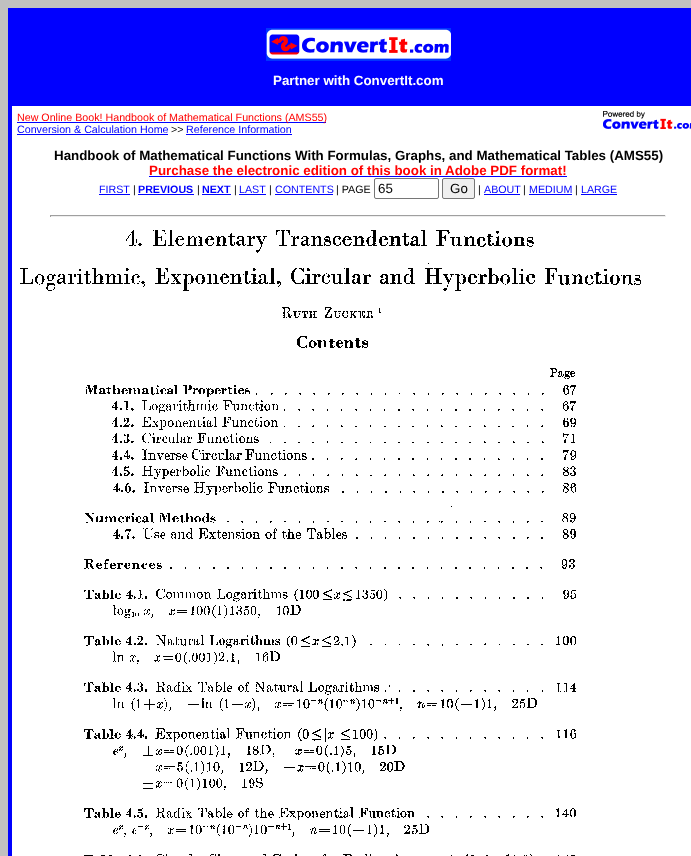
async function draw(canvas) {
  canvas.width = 691;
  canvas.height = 856;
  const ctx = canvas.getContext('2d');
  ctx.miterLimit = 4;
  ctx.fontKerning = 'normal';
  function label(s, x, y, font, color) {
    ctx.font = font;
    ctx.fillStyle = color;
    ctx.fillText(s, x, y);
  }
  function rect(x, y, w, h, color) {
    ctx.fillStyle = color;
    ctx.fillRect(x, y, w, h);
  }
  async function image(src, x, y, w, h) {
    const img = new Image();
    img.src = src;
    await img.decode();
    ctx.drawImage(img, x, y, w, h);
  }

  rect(0, 0, 691, 856, '#c0c0c0');
  rect(8, 8, 683, 848, '#00f');
  await image('assets/img1.png', 266, 28, 185, 33);
  label('Partner with ConvertIt.com', 273, 85, 'bold 13.35px Liberation Sans', '#fff');
  rect(12, 106, 679, 750, '#fff');
  rect(17, 122, 309, 1, '#00f');
  label('New Online Book! Handbook of Mathematical Functions (AMS55)', 17, 121, '10.7px Liberation Sans', '#f00');
  await image('assets/img2.png', 603, 111, 88, 18);
  label('Conversion & Calculation Home', 17, 133, '10.7px Liberation Sans', '#00f');
  rect(17, 134, 151, 1, '#00f');
  label('>>', 171, 133, '10.7px Liberation Sans', '#000');
  label('Reference Information', 186, 133, '10.7px Liberation Sans', '#00f');
  rect(186, 134, 106, 1, '#00f');
  label('Handbook of Mathematical Functions With Formulas, Graphs, and Mathematical Tables (AMS55)', 54, 160, 'bold 13.35px Liberation Sans', '#000');
  label('Purchase the electronic edition of this book in Adobe PDF format!', 149, 175, 'bold 13.35px Liberation Sans', '#f00');
  rect(149, 176, 418, 1, '#00f');
  label('FIRST', 99, 193, '10.7px Liberation Sans', '#00f');
  rect(99, 194, 31, 1, '#00f');
  label('|', 133, 193, '10.7px Liberation Sans', '#000');
  label('PREVIOUS', 138, 193, 'bold 10.7px Liberation Sans', '#00f');
  rect(138, 194, 56, 1, '#00f');
  label('|', 197, 193, '10.7px Liberation Sans', '#000');
  label('NEXT', 202, 193, 'bold 10.7px Liberation Sans', '#00f');
  rect(202, 194, 29, 1, '#00f');
  label('|', 234, 193, '10.7px Liberation Sans', '#000');
  label('LAST', 239, 193, '10.7px Liberation Sans', '#00f');
  rect(239, 194, 27, 1, '#00f');
  label('|', 269, 193, '10.7px Liberation Sans', '#000');
  label('CONTENTS', 275, 193, '10.7px Liberation Sans', '#00f');
  rect(275, 194, 58, 1, '#00f');
  label('| PAGE', 336, 193, '10.7px Liberation Sans', '#000');
  ctx.beginPath();
  ctx.roundRect(374.5, 178.5, 64, 20, 1.5);
  ctx.strokeStyle = '#767676';
  ctx.stroke();
  label('65', 378, 193, '13.35px Liberation Sans', '#000');
  ctx.fillStyle = '#efefef';
  ctx.beginPath();
  ctx.roundRect(442.5, 178.5, 32, 20, 1.5);
  ctx.fill();
  ctx.stroke();
  label('Go', 450, 193, '13.35px Liberation Sans', '#000');
  label('|', 478, 193, '10.7px Liberation Sans', '#000');
  label('ABOUT', 484, 193, '10.7px Liberation Sans', '#00f');
  rect(484, 194, 36, 1, '#00f');
  label('|', 523, 193, '10.7px Liberation Sans', '#000');
  label('MEDIUM', 529, 193, '10.7px Liberation Sans', '#00f');
  rect(529, 194, 43, 1, '#00f');
  label('|', 575, 193, '10.7px Liberation Sans', '#000');
  label('LARGE', 581, 193, '10.7px Liberation Sans', '#00f');
  rect(581, 194, 36, 1, '#00f');
  rect(50, 215, 616, 1, '#9f9f9f');
  rect(665, 215, 1, 2, '#eee');
  rect(50, 216, 616, 1, '#eee');
  rect(50, 215, 1, 2, '#9f9f9f');
  await image('assets/img3.png', 20, 230, 621, 626);
}

draw(document.querySelector('canvas'));
